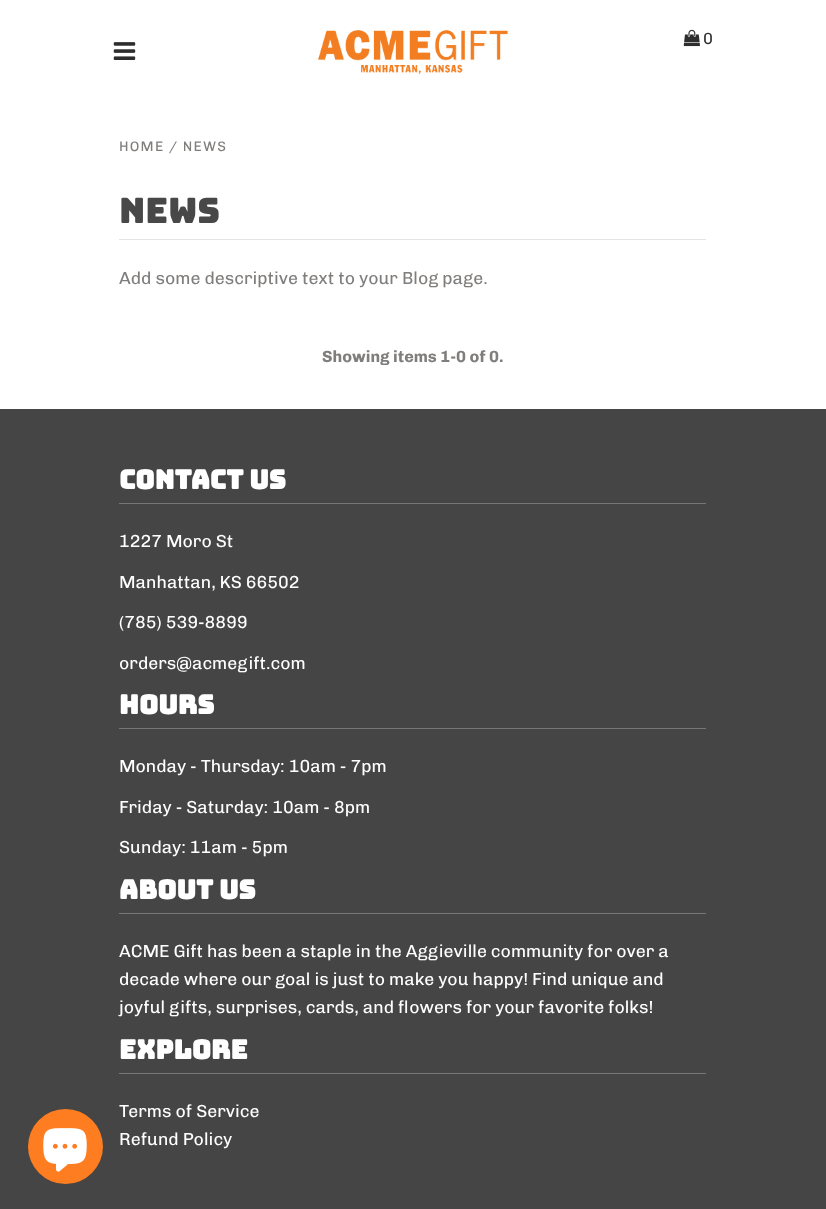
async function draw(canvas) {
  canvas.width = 826;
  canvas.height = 1209;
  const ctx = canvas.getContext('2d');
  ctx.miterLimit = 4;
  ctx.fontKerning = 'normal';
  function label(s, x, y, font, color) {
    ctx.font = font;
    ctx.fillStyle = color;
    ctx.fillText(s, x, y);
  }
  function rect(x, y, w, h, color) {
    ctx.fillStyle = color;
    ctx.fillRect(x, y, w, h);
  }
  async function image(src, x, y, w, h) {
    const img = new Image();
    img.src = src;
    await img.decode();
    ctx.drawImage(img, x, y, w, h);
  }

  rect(0, 0, 826, 1209, '#fff');
  rect(0, 409, 826, 800, '#454545');
  ctx.fillStyle = '#ff7d21';
  ctx.beginPath();
  ctx.arc(65.5, 1146.5, 37.5, 0, 2 * Math.PI);
  ctx.fill();
  await image('assets/img1.png', 43, 1128, 44, 44);
  await image('assets/img2.png', 317, 30, 191, 45);
  await image('assets/img3.png', 683, 29, 17, 18);
  label('0', 703, 44, '16.25px Chivo', '#2d2d2d');
  await image('assets/img4.png', 113, 42, 23, 18);
  ctx.letterSpacing = '1.25px';
  label('HOME / NEWS', 119, 151, '13.75px Chivo', '#807e7c');
  rect(119, 239, 587, 1, '#e5e5e5');
  ctx.letterSpacing = '0px';
  label('News', 119, 223, '35px Bungee', '#484848');
  label('Add some descriptive text to your Blog page.', 119, 284, '17.5px Chivo', '#807e7c');
  label('Showing items 1-0 of 0.', 322, 362, 'bold 16.25px Chivo', '#807e7c');
  rect(119, 503, 587, 1, '#787777');
  label('CONTACT US', 119, 489, 'bold 26.25px Bungee', '#fff');
  label('1227 Moro St', 119, 547, '17.5px Chivo', '#fff');
  label('Manhattan, KS 66502', 119, 588, '17.5px Chivo', '#fff');
  label('(785) 539-8899', 119, 628, '17.5px Chivo', '#fff');
  label('orders@acmegift.com', 119, 669, '17.5px Chivo', '#fff');
  rect(119, 728, 587, 1, '#787777');
  label('HOURS', 119, 714, 'bold 26.25px Bungee', '#fff');
  label('Monday - Thursday: 10am - 7pm', 119, 772, '17.5px Chivo', '#fff');
  label('Friday - Saturday: 10am - 8pm', 119, 813, '17.5px Chivo', '#fff');
  label('Sunday: 11am - 5pm', 119, 853, '17.5px Chivo', '#fff');
  rect(119, 913, 587, 1, '#787777');
  label('ABOUT US', 119, 899, 'bold 26.25px Bungee', '#fff');
  label('ACME Gift has been a staple in the Aggieville community for over a', 119, 957, '17.5px Chivo', '#fff');
  label('decade where our goal is just to make you happy! Find unique and', 119, 985, '17.5px Chivo', '#fff');
  label('joyful gifts, surprises, cards, and flowers for your favorite folks!', 119, 1013, '17.5px Chivo', '#fff');
  rect(119, 1073, 587, 1, '#787777');
  label('EXPLORE', 119, 1059, 'bold 26.25px Bungee', '#fff');
  label('Terms of Service', 119, 1117, '17.5px Chivo', '#fff');
  label('Refund Policy', 119, 1145, '17.5px Chivo', '#fff');
}

draw(document.querySelector('canvas'));
